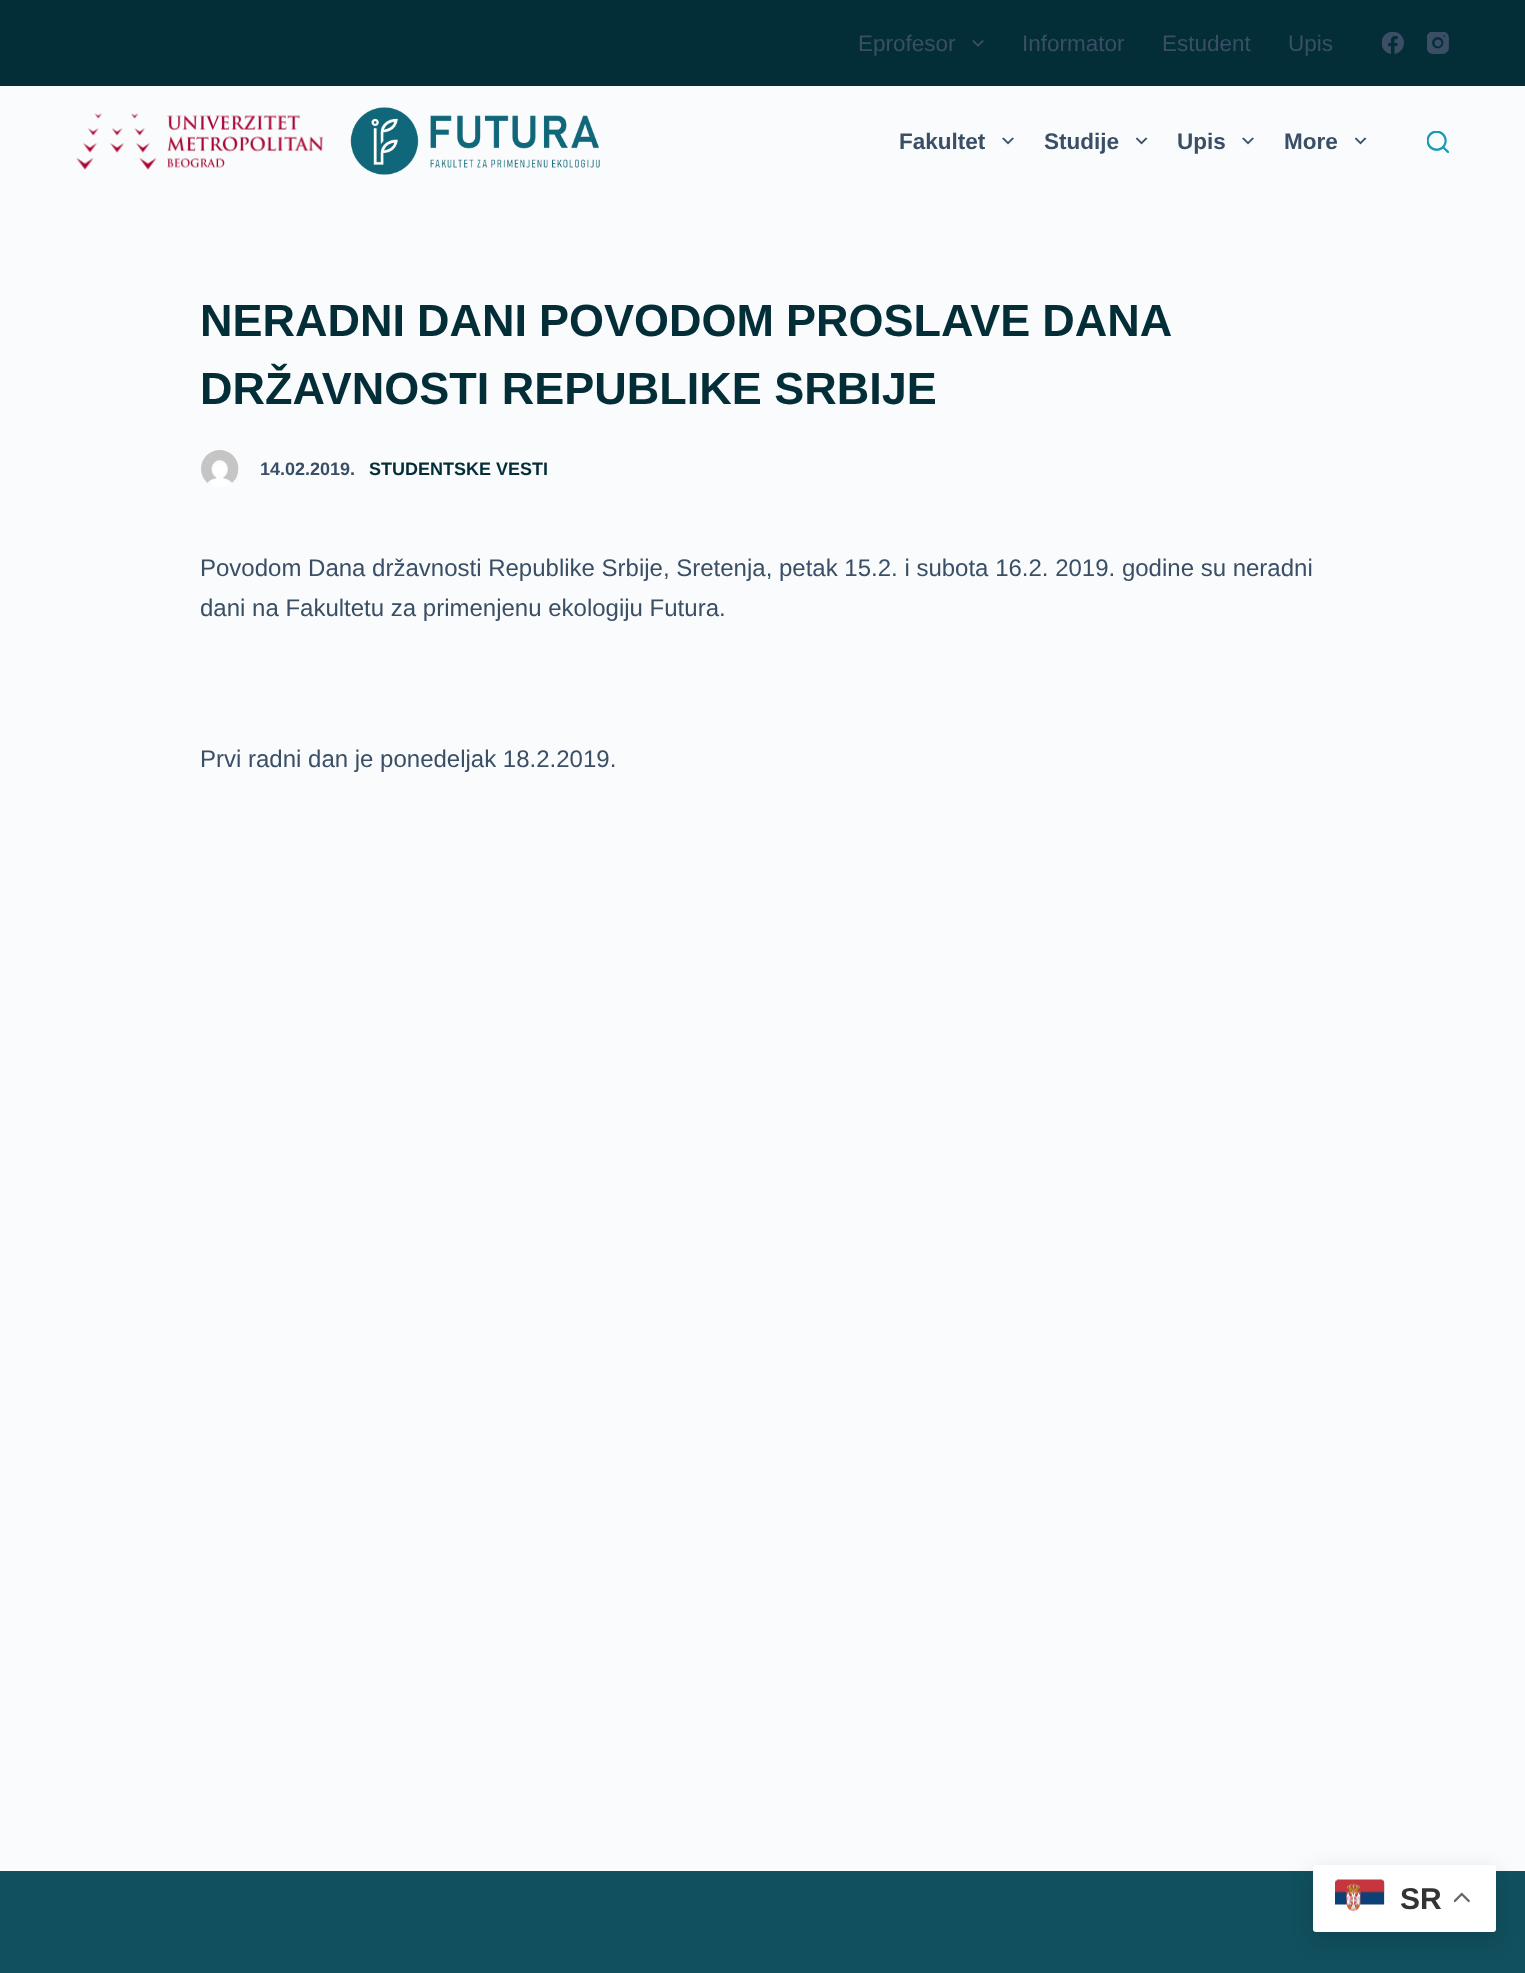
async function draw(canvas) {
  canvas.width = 1525;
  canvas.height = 1973;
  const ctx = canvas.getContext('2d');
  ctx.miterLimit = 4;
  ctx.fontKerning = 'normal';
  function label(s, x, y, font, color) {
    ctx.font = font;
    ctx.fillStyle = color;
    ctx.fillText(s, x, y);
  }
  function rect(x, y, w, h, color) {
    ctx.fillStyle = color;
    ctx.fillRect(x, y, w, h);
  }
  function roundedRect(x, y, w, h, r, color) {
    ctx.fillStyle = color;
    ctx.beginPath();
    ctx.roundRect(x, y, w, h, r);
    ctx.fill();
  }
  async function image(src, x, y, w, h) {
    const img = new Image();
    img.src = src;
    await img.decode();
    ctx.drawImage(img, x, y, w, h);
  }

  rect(0, 0, 1525, 1973, '#fafbfc');
  rect(0, 0, 1525, 86, '#042e37');
  label('Eprofesor', 858, 51, '22.5px Liberation Sans', '#3a4f66');
  await image('assets/img1.png', 972, 40, 12, 7);
  label('Informator', 1022, 51, '22.5px Liberation Sans', '#3a4f66');
  label('Estudent', 1162, 51, '22.5px Liberation Sans', '#3a4f66');
  label('Upis', 1288, 51, '22.5px Liberation Sans', '#3a4f66');
  await image('assets/img2.png', 1382, 32, 22, 22);
  await image('assets/img3.png', 1427, 32, 22, 22);
  await image('assets/img4.png', 76, 113, 248, 57);
  await image('assets/img5.png', 350, 107, 250, 68);
  label('Fakultet', 899, 149, 'bold 22.5px Liberation Sans', '#3a4f66');
  await image('assets/img6.png', 1002, 137, 12, 8);
  label('Studije', 1044, 149, 'bold 22.5px Liberation Sans', '#3a4f66');
  await image('assets/img7.png', 1136, 137, 12, 8);
  label('Upis', 1177, 149, 'bold 22.5px Liberation Sans', '#3a4f66');
  await image('assets/img6.png', 1242, 137, 12, 8);
  label('More', 1284, 149, 'bold 22.5px Liberation Sans', '#3a4f66');
  await image('assets/img7.png', 1355, 137, 12, 8);
  await image('assets/img8.png', 1427, 131, 22, 22);
  ctx.wordSpacing = '-0.5px';
  label('NERADNI DANI POVODOM PROSLAVE DANA', 200, 336, 'bold 45px Liberation Sans', '#042e37');
  ctx.wordSpacing = '0px';
  label('DRŽAVNOSTI REPUBLIKE SRBIJE', 200, 404, 'bold 45px Liberation Sans', '#042e37');
  await image('assets/img9.png', 201, 450, 38, 37);
  label('14.02.2019.', 260, 475, 'bold 18px Liberation Sans', '#3a4f66');
  label('STUDENTSKE VESTI', 369, 475, 'bold 18px Liberation Sans', '#042e37');
  label('Povodom Dana državnosti Republike Srbije, Sretenja, petak 15.2. i subota 16.2. 2019. godine su neradni', 200, 576, '24px Liberation Sans', '#3a4f66');
  label('dani na Fakultetu za primenjenu ekologiju Futura.', 200, 616, '24px Liberation Sans', '#3a4f66');
  label('Prvi radni dan je ponedeljak 18.2.2019.', 200, 767, '24px Liberation Sans', '#3a4f66');
  rect(0, 1871, 1525, 102, '#11505e');
  ctx.fillStyle = '#00000026';
  ctx.filter = 'blur(11px)';
  ctx.beginPath();
  ctx.roundRect(1313, 1872, 183, 68, 3);
  ctx.fill();
  ctx.filter = 'none';
  roundedRect(1313, 1865, 183, 67, 3, '#fff');
  await image('assets/img10.png', 1335, 1879, 50, 33);
  label('SR', 1400, 1909, 'bold 30px Liberation Sans', '#333');
  await image('assets/img11.png', 1454, 1892, 16, 11);
}

draw(document.querySelector('canvas'));
